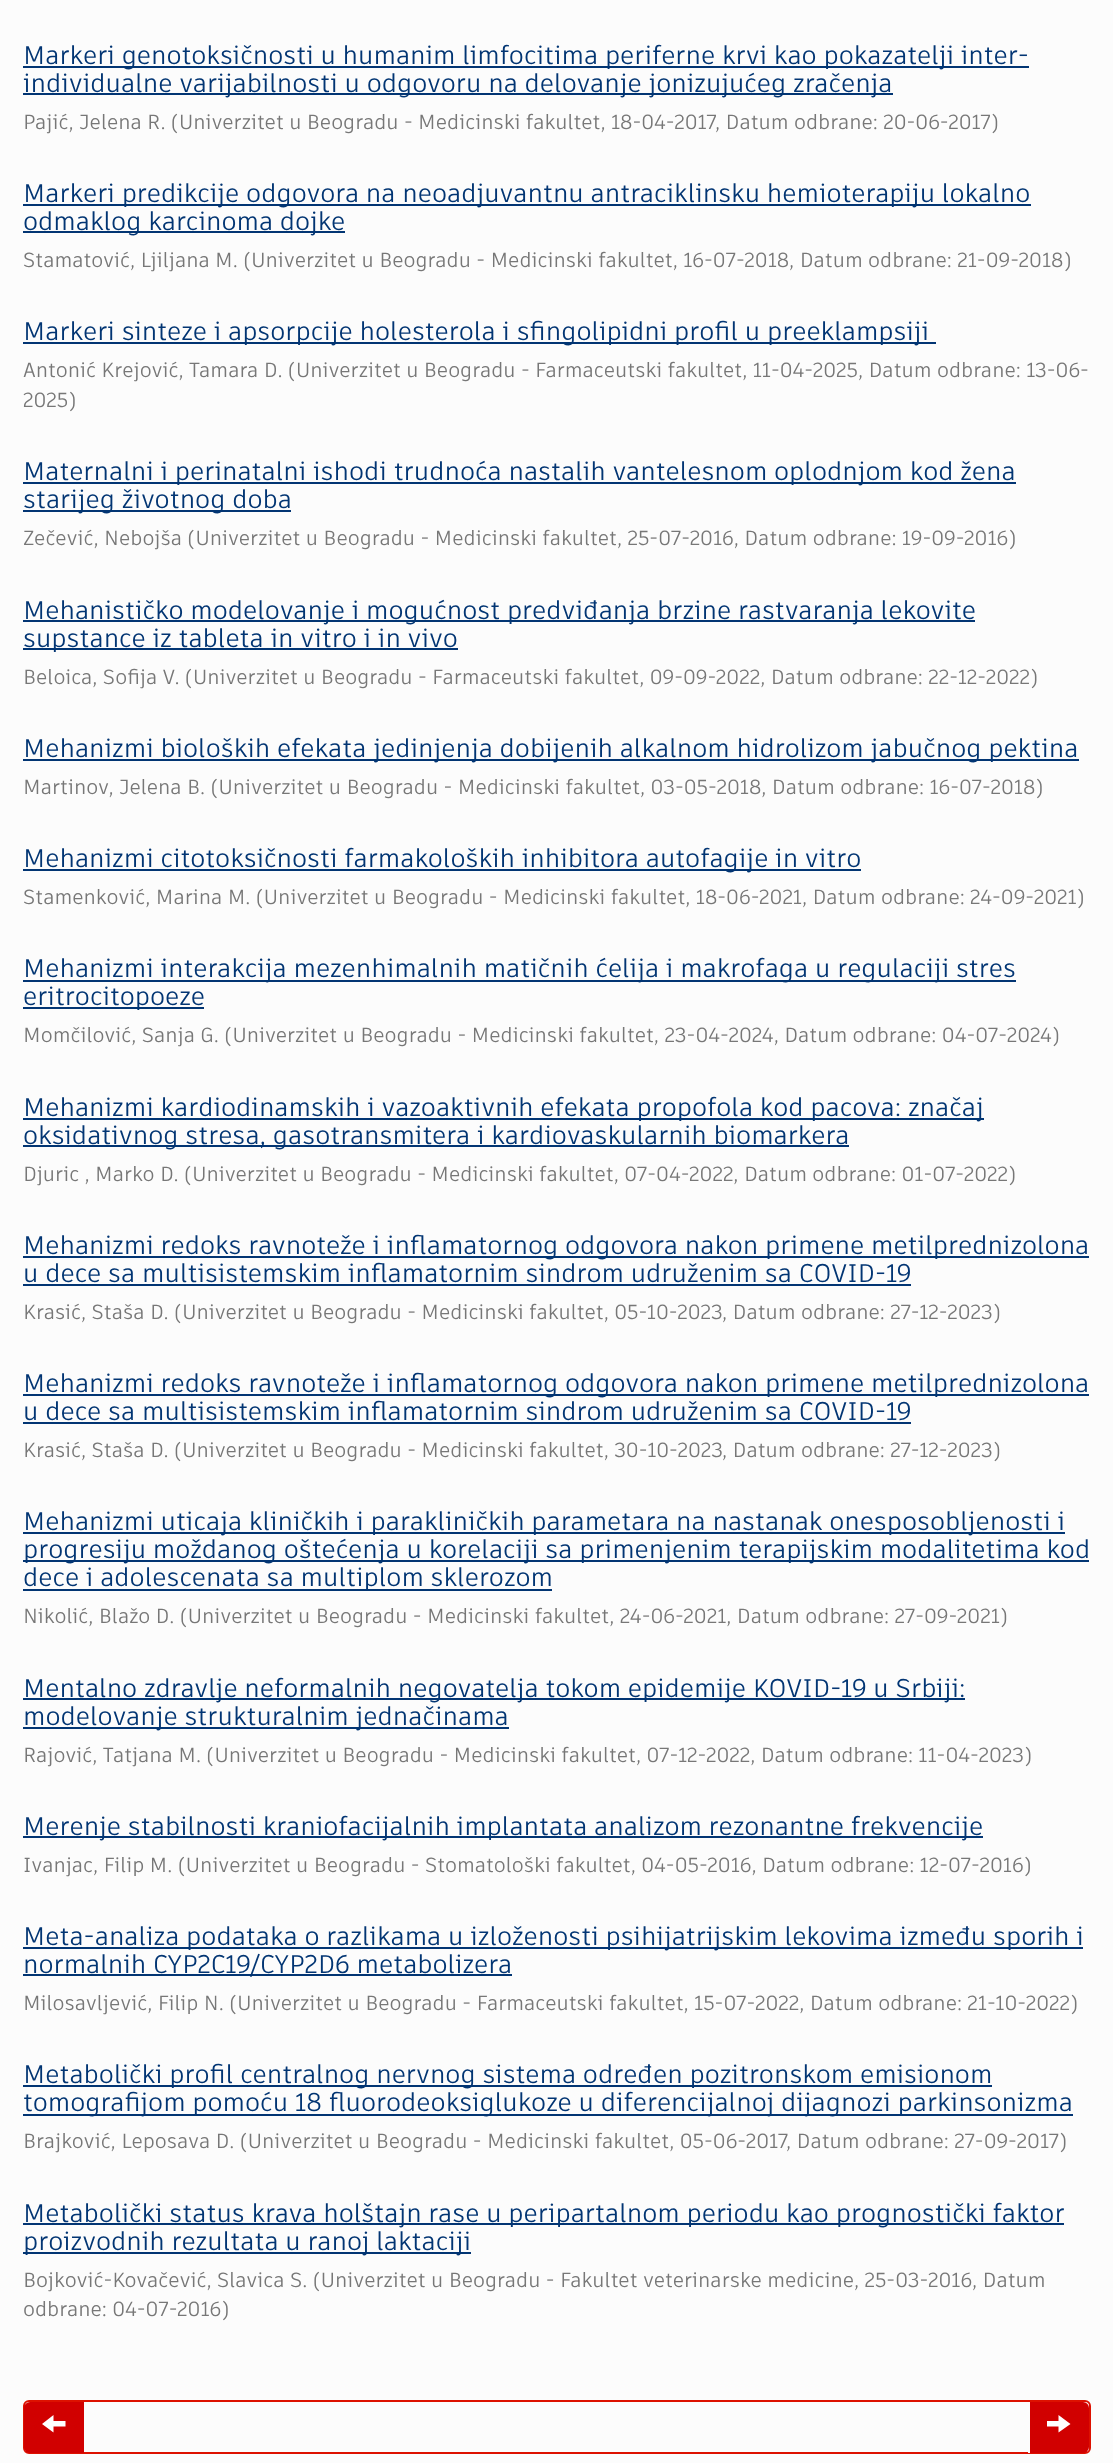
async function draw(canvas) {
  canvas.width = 1113;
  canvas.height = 2463;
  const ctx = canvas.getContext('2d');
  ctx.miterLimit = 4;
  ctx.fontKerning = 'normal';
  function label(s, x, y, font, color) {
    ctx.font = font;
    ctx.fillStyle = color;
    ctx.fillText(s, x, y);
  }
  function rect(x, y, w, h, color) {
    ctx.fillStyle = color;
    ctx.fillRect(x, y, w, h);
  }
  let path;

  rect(0, 0, 1113, 2463, '#fcfcfc');
  rect(23, 66, 1006, 2, '#023573');
  label('Markeri genotoksičnosti u humanim limfocitima periferne krvi kao pokazatelji inter-', 23, 64, '25.5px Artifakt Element', '#023573');
  rect(23, 93, 870, 2, '#023573');
  label('individualne varijabilnosti u odgovoru na delovanje jonizujućeg zračenja', 23, 92, '25.5px Artifakt Element', '#023573');
  label('Pajić, Jelena R. (Univerzitet u Beogradu - Medicinski fakultet, 18-04-2017', 23, 129, '20.25px Artifakt Element', '#777');
  label(', Datum odbrane: 20-06-2017)', 715, 129, '20.25px Artifakt Element', '#777');
  rect(23, 204, 1008, 2, '#023573');
  label('Markeri predikcije odgovora na neoadjuvantnu antraciklinsku hemioterapiju lokalno', 23, 202, '25.5px Artifakt Element', '#023573');
  rect(23, 231, 322, 2, '#023573');
  label('odmaklog karcinoma dojke', 23, 230, '25.5px Artifakt Element', '#023573');
  label('Stamatović, Ljiljana M. (Univerzitet u Beogradu - Medicinski fakultet, 16-07-2018, Datum odbrane: 21-09-2018)', 23, 267, '20.25px Artifakt Element', '#777');
  rect(23, 342, 913, 2, '#023573');
  label('Markeri sinteze i apsorpcije holesterola i sfingolipidni profil u preeklampsiji ', 23, 340, '25.5px Artifakt Element', '#023573');
  label('Antonić Krejović, Tamara D. (Univerzitet u Beogradu - Farmaceutski fakultet, 11-04-2025, Datum odbrane: 13-06-', 23, 377, '20.25px Artifakt Element', '#777');
  label('2025)', 23, 407, '20.25px Artifakt Element', '#777');
  rect(23, 482, 993, 2, '#023573');
  label('Maternalni i perinatalni ishodi trudnoća nastalih vantelesnom oplodnjom kod žena', 23, 480, '25.5px Artifakt Element', '#023573');
  rect(23, 510, 268, 2, '#023573');
  label('starijeg životnog doba', 23, 508, '25.5px Artifakt Element', '#023573');
  label('Zečević, Nebojša (Univerzitet u Beogradu - Medicinski fakultet, 25-07-2016, Datum odbrane: 19-09-2016)', 23, 545, '20.25px Artifakt Element', '#777');
  rect(23, 620, 952, 2, '#023573');
  label('Mehanističko modelovanje i mogućnost predviđanja brzine rastvaranja lekovite', 23, 619, '25.5px Artifakt Element', '#023573');
  rect(23, 648, 435, 2, '#023573');
  label('supstance iz tableta in vitro i in vivo', 23, 647, '25.5px Artifakt Element', '#023573');
  label('Beloica, Sofija V. (Univerzitet u Beogradu - Farmaceutski fakultet, 09-09-2022, Datum odbrane: 22-12-2022)', 23, 684, '20.25px Artifakt Element', '#777');
  rect(23, 759, 1056, 2, '#023573');
  label('Mehanizmi bioloških efekata jedinjenja dobijenih alkalnom hidrolizom jabučnog pektina', 23, 757, '25.5px Artifakt Element', '#023573');
  label('Martinov, Jelena B. (Univerzitet u Beogradu - Medicinski fakultet, 03-05-2018, Datum odbrane: 16-07-2018)', 23, 794, '20.25px Artifakt Element', '#777');
  rect(23, 869, 838, 2, '#023573');
  label('Mehanizmi citotoksičnosti farmakoloških inhibitora autofagije in vitro', 23, 867, '25.5px Artifakt Element', '#023573');
  label('Stamenković, Marina M. (Univerzitet u Beogradu - Medicinski fakultet, 18-06-2021, Datum odbrane: 24-09-2021)', 23, 904, '20.25px Artifakt Element', '#777');
  rect(23, 980, 993, 2, '#023573');
  label('Mehanizmi interakcija mezenhimalnih matičnih ćelija i makrofaga u regulaciji stres', 23, 977, '25.5px Artifakt Element', '#023573');
  rect(23, 1007, 181, 2, '#023573');
  label('eritrocitopoeze', 23, 1005, '25.5px Artifakt Element', '#023573');
  label('Momčilović, Sanja G. (Univerzitet u Beogradu - Medicinski fakultet, 23-04-2024, Datum odbrane: 04-07-2024)', 23, 1042, '20.25px Artifakt Element', '#777');
  rect(23, 1118, 961, 2, '#023573');
  label('Mehanizmi kardiodinamskih i vazoaktivnih efekata propofola kod pacova: značaj', 23, 1116, '25.5px Artifakt Element', '#023573');
  rect(23, 1145, 826, 2, '#023573');
  label('oksidativnog stresa, gasotransmitera i kardiovaskularnih biomarkera', 23, 1144, '25.5px Artifakt Element', '#023573');
  label('Djuric , Marko D. (Univerzitet u Beogradu - Medicinski fakultet, 07-04-2022, Datum odbrane: 01-07-2022)', 23, 1181, '20.25px Artifakt Element', '#777');
  rect(23, 1256, 1066, 2, '#023573');
  label('Mehanizmi redoks ravnoteže i inflamatornog odgovora nakon primene metilprednizolona', 23, 1254, '25.5px Artifakt Element', '#023573');
  label('u dece sa multisistemskim inflamatornim sindrom udruženim sa COVID-19', 23, 1282, '25.5px Artifakt Element', '#023573');
  rect(23, 1284, 888, 2, '#023573');
  label('Krasić, Staša D. (Univerzitet u Beogradu - Medicinski fakultet, 05-10-2023', 23, 1319, '20.25px Artifakt Element', '#777');
  label(', Datum odbrane: 27-12-2023)', 722, 1319, '20.25px Artifakt Element', '#777');
  rect(23, 1394, 1066, 2, '#023573');
  label('Mehanizmi redoks ravnoteže i inflamatornog odgovora nakon primene metilprednizolona', 23, 1392, '25.5px Artifakt Element', '#023573');
  label('u dece sa multisistemskim inflamatornim sindrom udruženim sa COVID-19', 23, 1420, '25.5px Artifakt Element', '#023573');
  rect(23, 1422, 888, 2, '#023573');
  label('Krasić, Staša D. (Univerzitet u Beogradu - Medicinski fakultet, 30-10-2023', 23, 1457, '20.25px Artifakt Element', '#777');
  label(', Datum odbrane: 27-12-2023)', 722, 1457, '20.25px Artifakt Element', '#777');
  rect(23, 1532, 1042, 2, '#023573');
  label('Mehanizmi uticaja kliničkih i parakliničkih parametara na nastanak onesposobljenosti i', 23, 1530, '25.5px Artifakt Element', '#023573');
  rect(23, 1560, 1066, 2, '#023573');
  label('progresiju moždanog oštećenja u korelaciji sa primenjenim terapijskim modalitetima kod', 23, 1558, '25.5px Artifakt Element', '#023573');
  rect(23, 1589, 529, 2, '#023573');
  label('dece i adolescenata sa multiplom sklerozom', 23, 1586, '25.5px Artifakt Element', '#023573');
  label('Nikolić, Blažo D. (Univerzitet u Beogradu - Medicinski fakultet, 24-06-2021, Datum odbrane: 27-09-2021)', 23, 1623, '20.25px Artifakt Element', '#777');
  rect(23, 1698, 942, 2, '#023573');
  label('Mentalno zdravlje neformalnih negovatelja tokom epidemije KOVID-19 u Srbiji:', 23, 1697, '25.5px Artifakt Element', '#023573');
  rect(23, 1727, 486, 2, '#023573');
  label('modelovanje strukturalnim jednačinama', 23, 1725, '25.5px Artifakt Element', '#023573');
  label('Rajović, Tatjana M. (Univerzitet u Beogradu - Medicinski fakultet, 07-12-2022, Datum odbrane: 11-04-2023)', 23, 1762, '20.25px Artifakt Element', '#777');
  rect(23, 1836, 960, 2, '#023573');
  label('Merenje stabilnosti kraniofacijalnih implantata analizom rezonantne frekvencije', 23, 1835, '25.5px Artifakt Element', '#023573');
  label('Ivanjac, Filip М. (Univerzitet u Beogradu - Stomatološki fakultet, 04-05-2016, Datum odbrane: 12-07-2016)', 23, 1872, '20.25px Artifakt Element', '#777');
  rect(23, 1947, 1060, 2, '#023573');
  label('Meta-analiza podataka o razlikama u izloženosti psihijatrijskim lekovima između sporih i', 23, 1945, '25.5px Artifakt Element', '#023573');
  rect(23, 1974, 489, 2, '#023573');
  label('normalnih CYP2C19/CYP2D6 metabolizera', 23, 1973, '25.5px Artifakt Element', '#023573');
  label('Milosavljević, Filip N. (Univerzitet u Beogradu - Farmaceutski fakultet, 15-07-2022, Datum odbrane: 21-10-2022)', 23, 2010, '20.25px Artifakt Element', '#777');
  rect(23, 2085, 969, 2, '#023573');
  label('Metabolički profil centralnog nervnog sistema određen pozitronskom emisionom', 23, 2083, '25.5px Artifakt Element', '#023573');
  rect(23, 2114, 1050, 2, '#023573');
  label('tomografijom pomoću 18 fluorodeoksiglukoze u diferencijalnoj dijagnozi parkinsonizma', 23, 2111, '25.5px Artifakt Element', '#023573');
  label('Brajković, Leposava D. (Univerzitet u Beogradu - Medicinski fakultet, 05-06-2017', 23, 2148, '20.25px Artifakt Element', '#777');
  label(', Datum odbrane: 27-09-2017)', 786, 2148, '20.25px Artifakt Element', '#777');
  rect(23, 2223, 1041, 2, '#023573');
  label('Metabolički status krava holštajn rase u peripartalnom periodu kao prognostički faktor', 23, 2222, '25.5px Artifakt Element', '#023573');
  rect(23, 2252, 448, 2, '#023573');
  label('proizvodnih rezultata u ranoj laktaciji', 23, 2250, '25.5px Artifakt Element', '#023573');
  label('Bojković-Kovačević, Slavica S. (Univerzitet u Beogradu - Fakultet veterinarske medicine, 25-03-2016, Datum', 23, 2287, '20.25px Artifakt Element', '#777');
  label('odbrane: 04-07-2016)', 23, 2316, '20.25px Artifakt Element', '#777');
  ctx.beginPath();
  ctx.roundRect(24, 2401, 1066, 52, 5);
  ctx.strokeStyle = '#d10';
  ctx.lineWidth = 2;
  ctx.stroke();
  ctx.fillStyle = '#d10000';
  ctx.beginPath();
  ctx.roundRect(24, 2402, 60, 51, [6, 0, 0, 6]);
  ctx.fill();
  ctx.fillStyle = '#fff';
  path = new Path2D('M42 2424L53.5 2415V2421H65.5V2426.5H53.5V2432.5Z');
  ctx.fill(path);
  ctx.fillStyle = '#d10000';
  ctx.beginPath();
  ctx.roundRect(1028, 2402, 61, 51, [0, 6, 6, 0]);
  ctx.fill();
  rect(1028, 2402, 2, 51, '#fcfcfc');
  ctx.fillStyle = '#fff';
  path = new Path2D('M1047 2426.5V2421H1058.5V2415L1070.5 2424L1058.5 2432.5V2426.5Z');
  ctx.fill(path);
}

draw(document.querySelector('canvas'));
